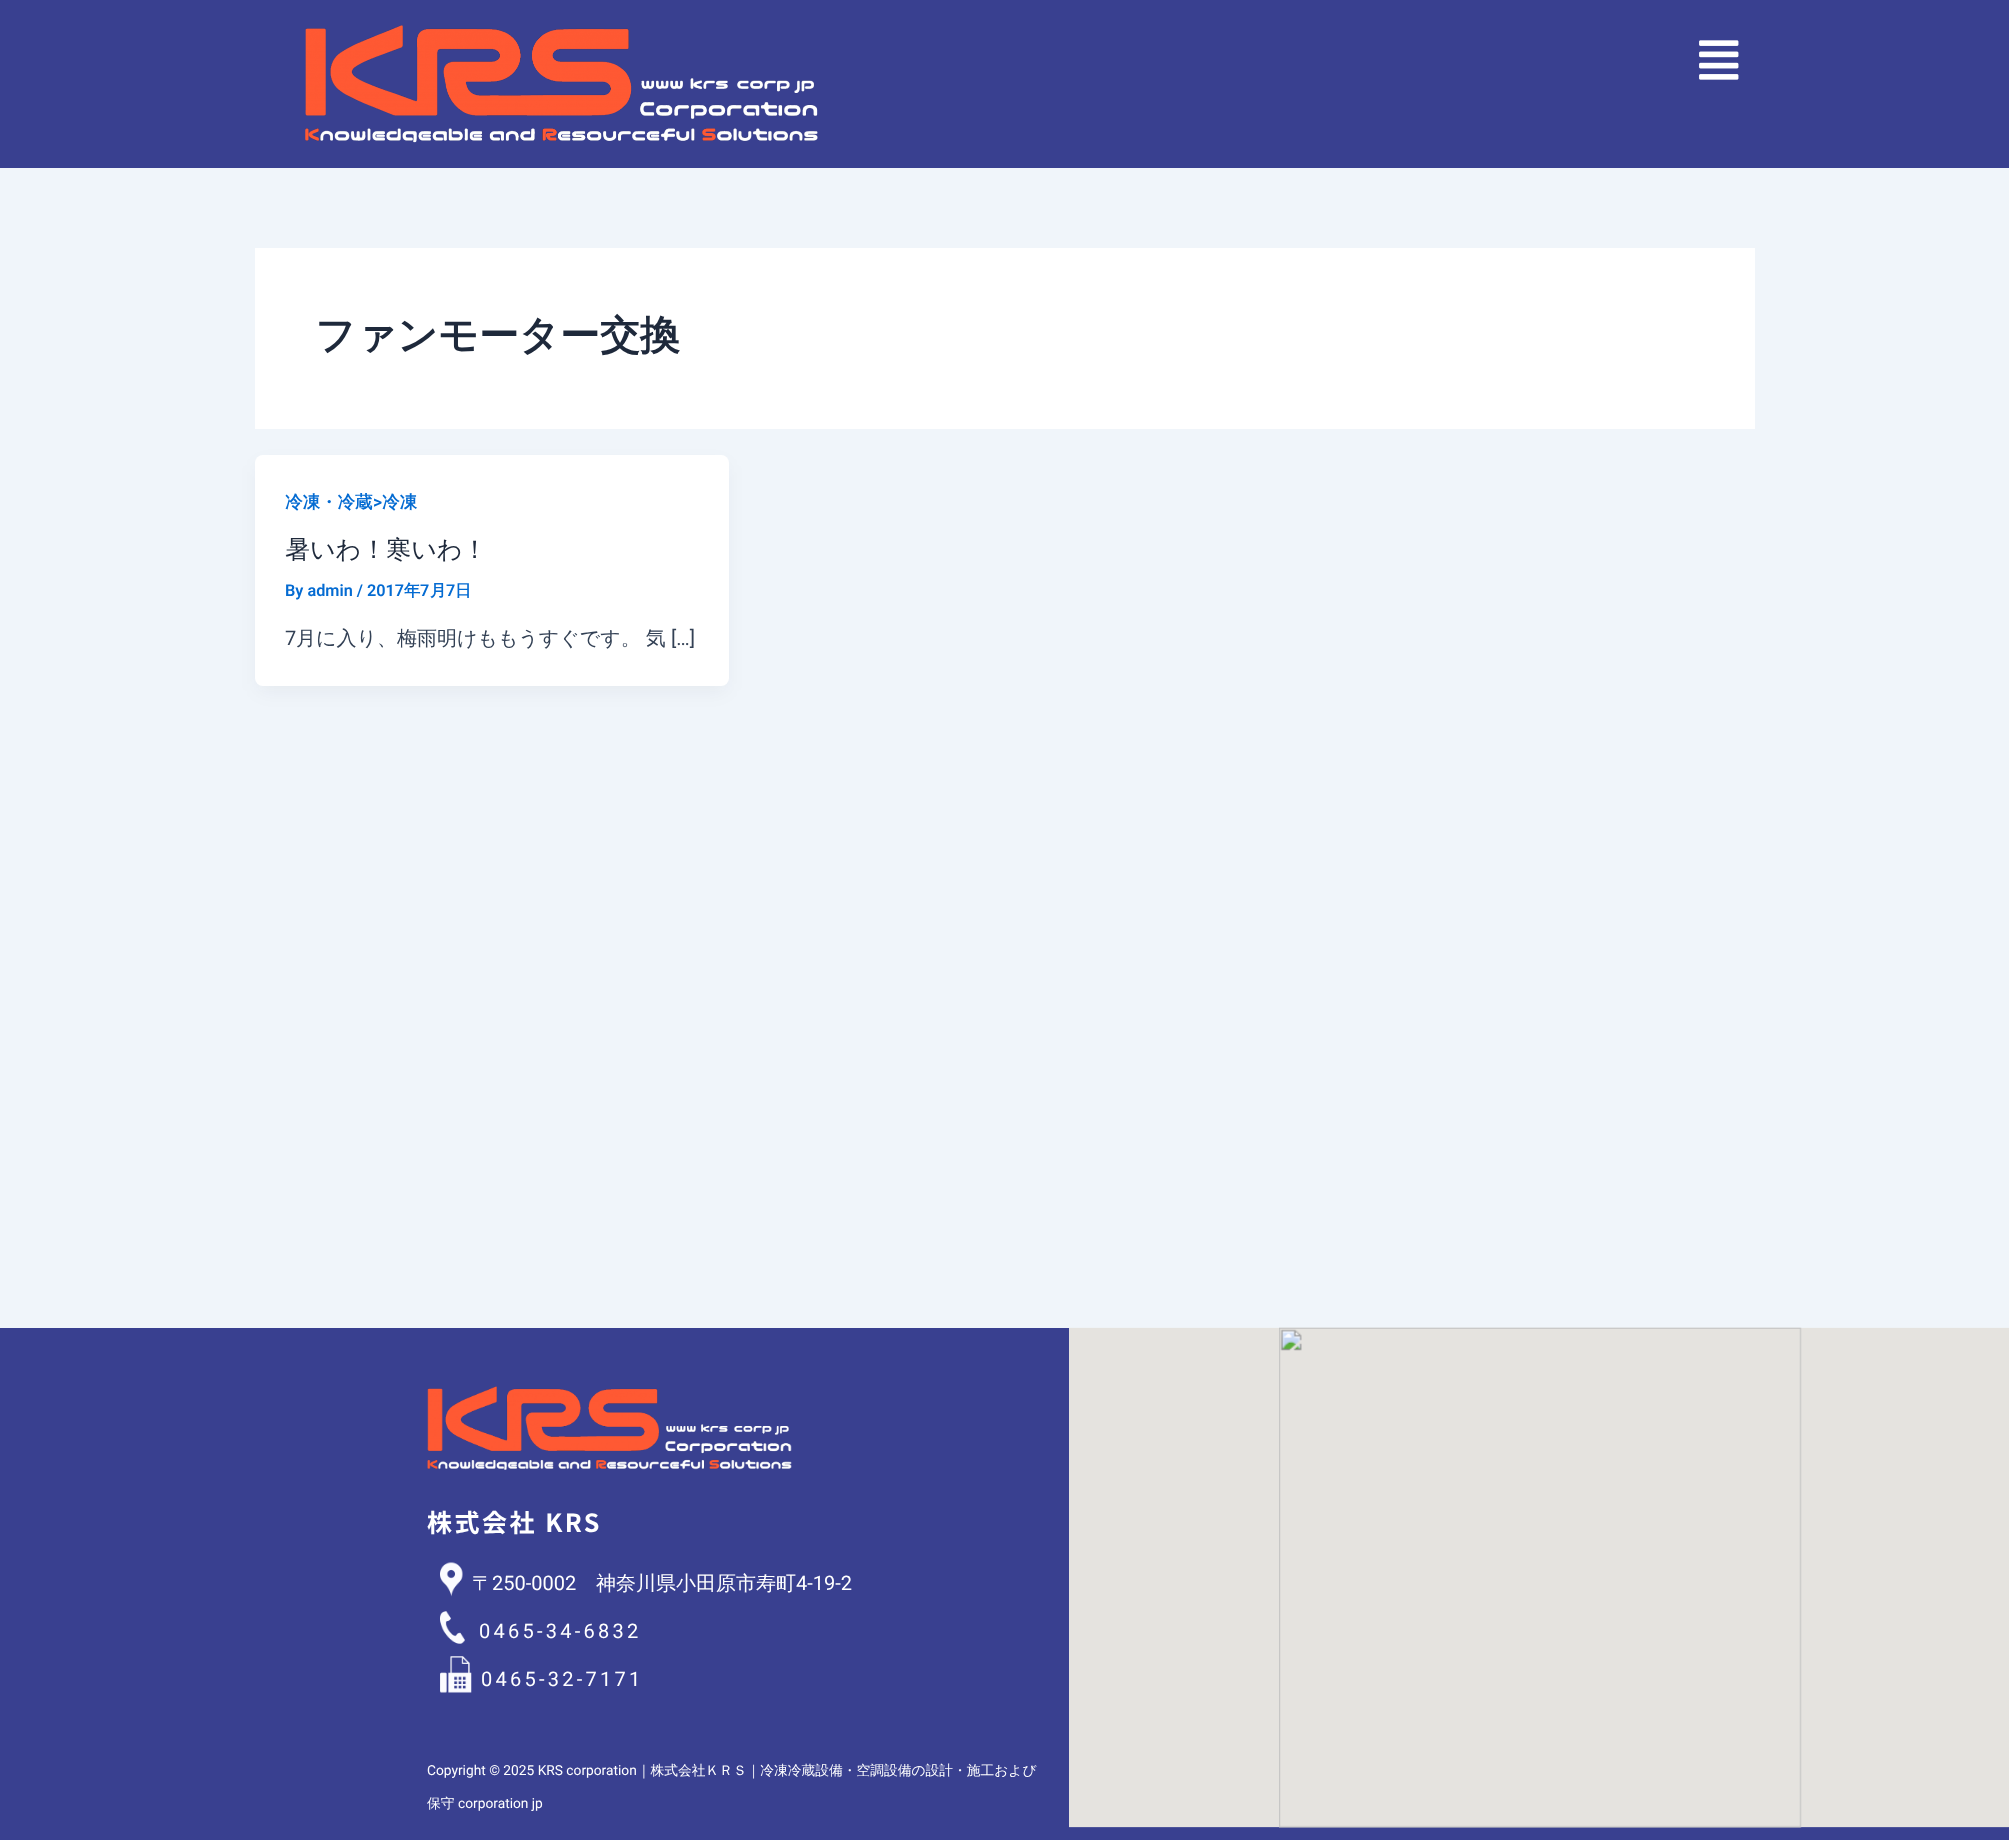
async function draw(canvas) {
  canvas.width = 2009;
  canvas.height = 1840;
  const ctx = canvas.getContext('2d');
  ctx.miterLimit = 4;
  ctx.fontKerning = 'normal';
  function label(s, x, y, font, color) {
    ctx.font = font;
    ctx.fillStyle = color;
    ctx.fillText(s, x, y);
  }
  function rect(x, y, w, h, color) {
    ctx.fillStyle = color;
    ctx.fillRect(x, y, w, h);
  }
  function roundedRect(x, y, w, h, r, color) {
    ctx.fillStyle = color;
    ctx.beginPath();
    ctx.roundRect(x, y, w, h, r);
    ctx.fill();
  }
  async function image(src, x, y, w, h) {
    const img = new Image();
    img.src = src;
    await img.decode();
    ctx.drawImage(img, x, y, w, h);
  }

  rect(0, 0, 2009, 1840, '#f0f5fa');
  rect(0, 0, 2009, 168, '#394090');
  await image('assets/img1.png', 305, 25, 513, 118);
  await image('assets/img2.png', 1699, 40, 40, 40);
  rect(255, 248, 1500, 181, '#fff');
  label('ファンモーター交換', 315, 349, 'bold 40px WenQuanYi Zen Hei', '#1e293b');
  ctx.fillStyle = '#1018280d';
  ctx.filter = 'blur(9.5px)';
  ctx.beginPath();
  ctx.roundRect(258, 465, 468, 226, 5);
  ctx.fill();
  ctx.filter = 'none';
  roundedRect(255, 455, 474, 231, 8, '#fff');
  label('冷凍・冷蔵', 285, 508, 'bold 17.5px WenQuanYi Zen Hei', '#046bd2');
  label('>', 373, 508, '600 17.5px Roboto', '#046bd2');
  label('冷凍', 382, 508, 'bold 17.5px WenQuanYi Zen Hei', '#046bd2');
  label('暑いわ！寒いわ！', 285, 558, '500 25px WenQuanYi Zen Hei', '#1e293b');
  label('By admin / 2017', 285, 596, '600 16.25px Roboto', '#046bd2');
  label('年', 404, 596, 'bold 16.25px WenQuanYi Zen Hei', '#046bd2');
  label('7', 420, 596, '600 16.25px Roboto', '#046bd2');
  label('月', 430, 596, 'bold 16.25px WenQuanYi Zen Hei', '#046bd2');
  label('7', 446, 596, '600 16.25px Roboto', '#046bd2');
  label('日', 455, 596, 'bold 16.25px WenQuanYi Zen Hei', '#046bd2');
  label('7', 285, 645, '20px Roboto', '#334155');
  ctx.wordSpacing = '-1px';
  label('月に入り、梅雨明けももうすぐです。 気', 296, 645, '500 20px WenQuanYi Zen Hei', '#334155');
  ctx.wordSpacing = '0px';
  label('[…]', 671, 645, '20px Roboto', '#334155');
  rect(0, 1328, 2009, 512, '#394090');
  await image('assets/img3.png', 427, 1386, 365, 84);
  ctx.letterSpacing = '2.5px';
  label('株式会社 KRS', 427, 1532, 'bold 25px Noto Sans JP', '#fff');
  await image('assets/img4.png', 440, 1562, 23, 35);
  ctx.letterSpacing = '0px';
  label('〒', 472, 1590, '500 20px WenQuanYi Zen Hei', '#fff');
  label('250-0002', 492, 1590, '20px Roboto', '#fff');
  label('神奈川県小田原市寿町', 596, 1590, '500 20px WenQuanYi Zen Hei', '#fff');
  label('4-19-2', 796, 1590, '20px Roboto', '#fff');
  await image('assets/img5.png', 440, 1611, 25, 33);
  ctx.letterSpacing = '3.25px';
  label('0465-34-6832', 479, 1638, '20px Roboto', '#fff');
  await image('assets/img6.png', 440, 1656, 32, 37);
  label('0465-32-7171', 481, 1686, '20px Roboto', '#fff');
  ctx.letterSpacing = '0px';
  label('Copyright © 2025 KRS corporation', 427, 1775, '13.75px Roboto', '#fff');
  label('｜株式会社ＫＲＳ｜冷凍冷蔵設備・空調設備の設計・施工および', 637, 1775, '500 13.75px WenQuanYi Zen Hei', '#fff');
  label('保守', 427, 1808, '500 13.75px WenQuanYi Zen Hei', '#fff');
  label('corporation jp', 458, 1808, '13.75px Roboto', '#fff');
  await image('assets/img7.png', 1069, 1327, 940, 501);
}

draw(document.querySelector('canvas'));
